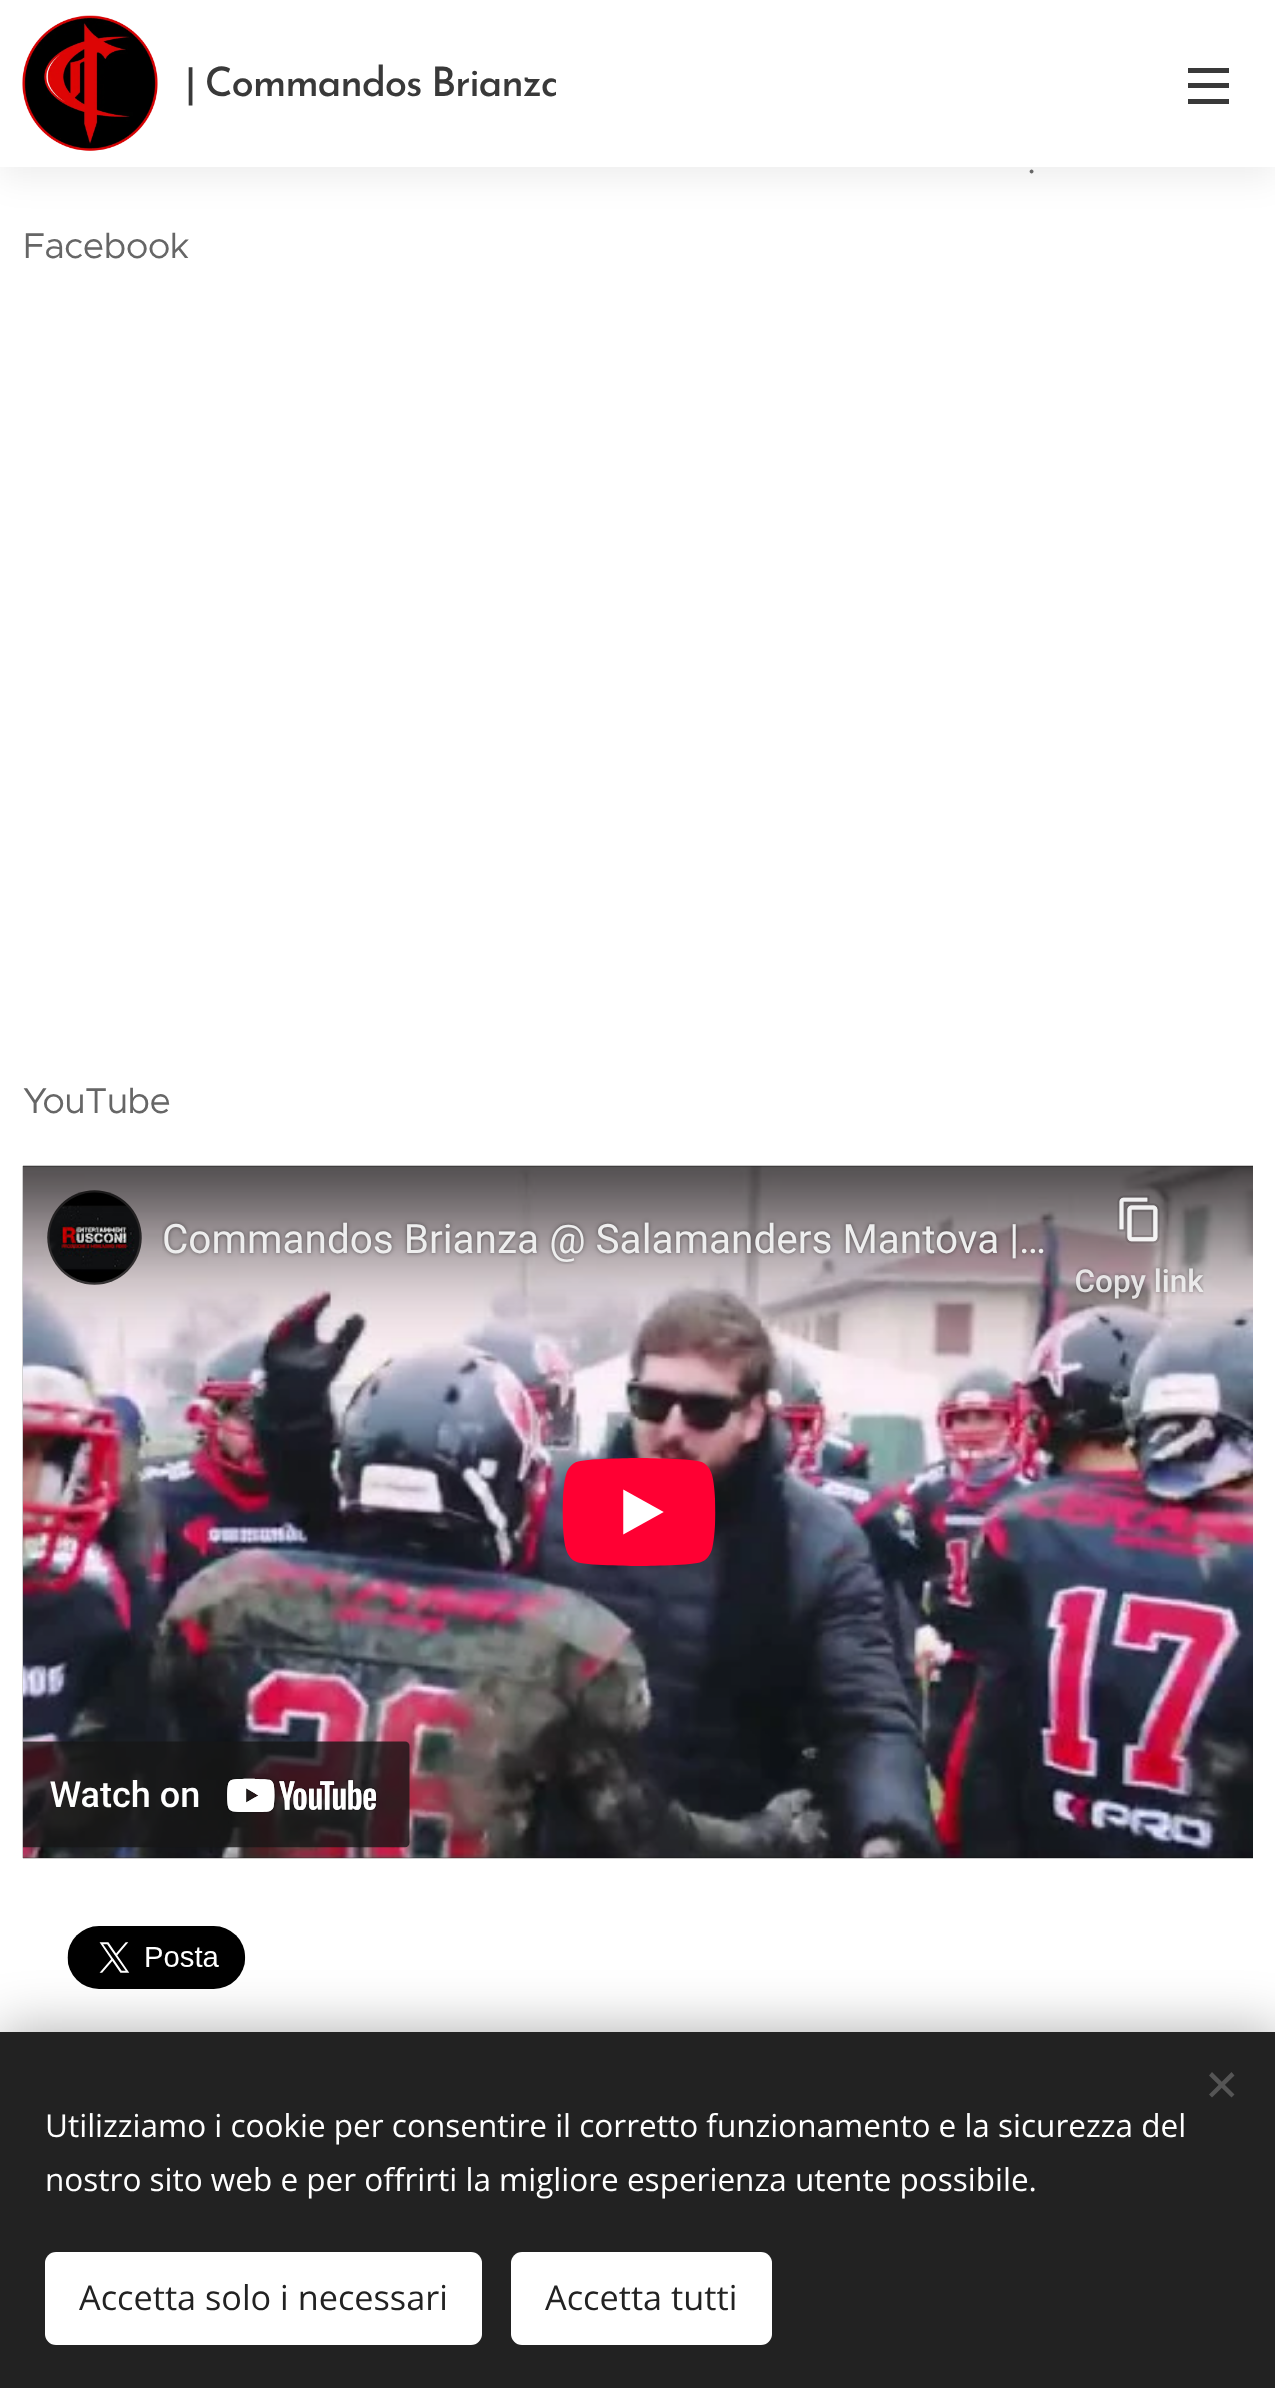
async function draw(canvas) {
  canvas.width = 1275;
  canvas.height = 2388;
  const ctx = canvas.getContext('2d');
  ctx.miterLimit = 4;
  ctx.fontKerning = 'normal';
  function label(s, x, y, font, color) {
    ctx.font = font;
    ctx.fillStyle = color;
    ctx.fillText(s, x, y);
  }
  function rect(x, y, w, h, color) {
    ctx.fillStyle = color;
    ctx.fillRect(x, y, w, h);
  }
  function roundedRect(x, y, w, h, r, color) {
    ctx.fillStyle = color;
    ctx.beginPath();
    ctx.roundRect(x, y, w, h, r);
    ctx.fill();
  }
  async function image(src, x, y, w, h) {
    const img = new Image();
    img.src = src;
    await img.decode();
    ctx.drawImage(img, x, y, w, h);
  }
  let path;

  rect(0, 0, 1275, 2388, '#fff');
  ctx.fillStyle = '#00000012';
  ctx.filter = 'blur(17px)';
  ctx.beginPath();
  ctx.rect(0, 11, 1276, 167);
  ctx.fill();
  ctx.filter = 'none';
  rect(0, 0, 1275, 167, '#fff');
  await image('assets/img1.png', 22, 15, 136, 136);
  ctx.save();
  ctx.beginPath();
  ctx.rect(176, 54, 380, 61);
  ctx.clip();
  ctx.letterSpacing = '-1.25px';
  ctx.wordSpacing = '-2px';
  label('| Commandos Brianza', 185, 96, '500 40.5px Josefin Sans', '#393939');
  ctx.restore();
  rect(1188, 83, 41, 5, '#393939');
  rect(1188, 68, 41, 5, '#393939');
  rect(1188, 99, 41, 5, '#393939');
  ctx.letterSpacing = '-0.75px';
  label('.', 1027, 173, '36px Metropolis', '#666');
  label('Facebook', 23, 258, '36px Metropolis', '#666');
  label('YouTube', 23, 1113, '36px Metropolis', '#666');
  await image('assets/img2.png', 22, 1165, 1231, 694);
  await image('assets/img3.png', 67, 1926, 179, 63);
  ctx.fillStyle = '#00000054';
  ctx.filter = 'blur(28px)';
  ctx.beginPath();
  ctx.rect(0, 2032, 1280, 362);
  ctx.fill();
  ctx.filter = 'none';
  rect(0, 2032, 1275, 356, '#222');
  ctx.fillStyle = '#555';
  path = new Path2D('M1209 2094.5L1231.5 2072L1234.5 2075.5L1212 2097.5Z');
  ctx.fill(path);
  path = new Path2D('M1212 2072L1234.5 2094.5L1231.5 2097.5L1209 2075.5Z');
  ctx.fill(path);
  ctx.letterSpacing = '0px';
  label('Utilizziamo i cookie per consentire il corretto funzionamento e la sicurezza del', 45, 2137, '31.5px Open Sans', '#fff');
  label('nostro sito web e per offrirti la migliore esperienza utente possibile.', 45, 2191, '31.5px Open Sans', '#fff');
  roundedRect(45, 2252, 437, 93, 11, '#fff');
  label('Accetta solo i necessari', 79, 2310, '34.25px Open Sans', '#222');
  roundedRect(511, 2252, 261, 93, 11, '#fff');
  label('Accetta tutti', 545, 2310, '34.25px Open Sans', '#222');
}

draw(document.querySelector('canvas'));
